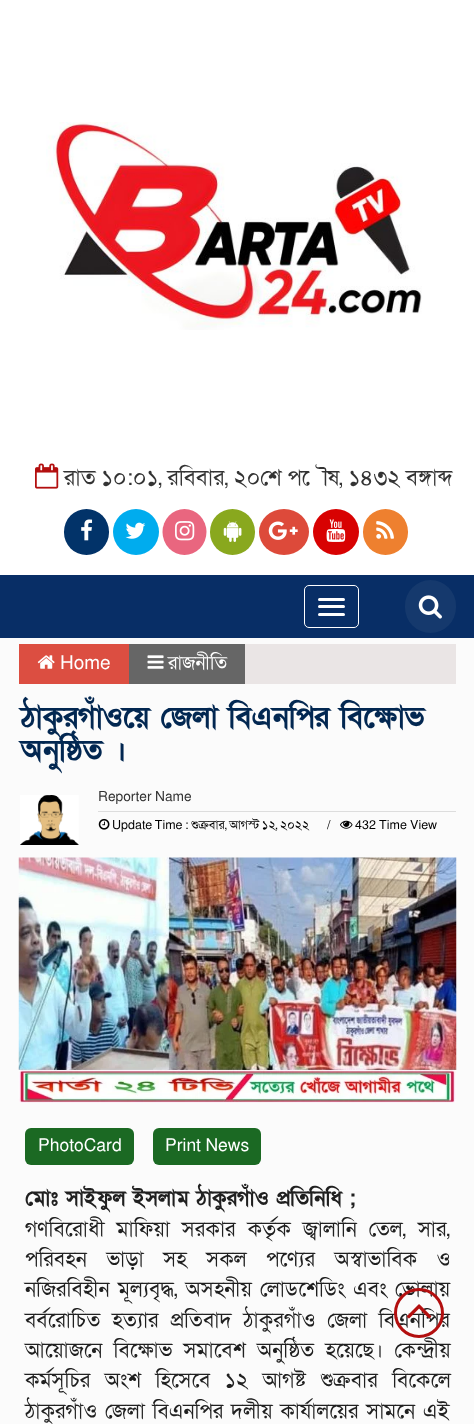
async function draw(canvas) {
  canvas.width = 474;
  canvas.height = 1424;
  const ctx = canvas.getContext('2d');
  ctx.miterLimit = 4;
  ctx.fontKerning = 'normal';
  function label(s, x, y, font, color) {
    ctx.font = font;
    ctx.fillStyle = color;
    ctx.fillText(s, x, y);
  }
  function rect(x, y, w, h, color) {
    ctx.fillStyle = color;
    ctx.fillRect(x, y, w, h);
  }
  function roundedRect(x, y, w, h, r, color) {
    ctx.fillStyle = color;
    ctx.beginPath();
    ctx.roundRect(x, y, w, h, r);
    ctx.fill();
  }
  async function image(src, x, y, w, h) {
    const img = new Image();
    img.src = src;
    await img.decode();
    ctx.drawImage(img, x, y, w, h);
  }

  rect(0, 0, 474, 1424, '#fbfbfb');
  rect(0, 0, 474, 575, '#fff');
  await image('assets/img1.png', 46, 122, 376, 208);
  await image('assets/img2.png', 35, 463, 24, 26);
  label('রাত ১০:০১, রবিবার, ২০শে পৌষ, ১৪৩২ বঙ্গাব্দ', 64, 485, '22.5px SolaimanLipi', '#333');
  roundedRect(64, 509, 45, 46, 22.5, '#023369');
  await image('assets/img3.png', 81, 519, 12, 22);
  ctx.fillStyle = '#00acee';
  ctx.beginPath();
  ctx.arc(136, 532, 23, 0, 2 * Math.PI);
  ctx.fill();
  await image('assets/img4.png', 125, 522, 21, 17);
  ctx.fillStyle = '#e9667f';
  ctx.beginPath();
  ctx.ellipse(184.5, 532, 22, 23, 0, 0, 2 * Math.PI);
  ctx.fill();
  await image('assets/img5.png', 175, 521, 20, 20);
  roundedRect(210, 509, 45, 46, 22.5, '#89a81e');
  await image('assets/img6.png', 223, 521, 19, 21);
  ctx.fillStyle = '#dd4a3a';
  ctx.beginPath();
  ctx.ellipse(284, 532, 25, 23, 0, 0, 2 * Math.PI);
  ctx.fill();
  await image('assets/img7.png', 268, 521, 30, 19);
  ctx.fillStyle = '#d80202';
  ctx.beginPath();
  ctx.arc(336, 532, 23, 0, 2 * Math.PI);
  ctx.fill();
  await image('assets/img8.png', 326, 519, 20, 23);
  roundedRect(363, 509, 45, 46, 22.5, '#ee802f');
  await image('assets/img9.png', 376, 521, 18, 18);
  rect(0, 575, 474, 63, '#082e66');
  ctx.beginPath();
  ctx.roundRect(304.5, 585.5, 54, 42, 4.5);
  ctx.strokeStyle = '#fff';
  ctx.stroke();
  roundedRect(318, 598, 27, 3, 1.5, '#fff');
  roundedRect(318, 605, 27, 3, 1.5, '#fff');
  roundedRect(318, 613, 27, 3, 1.5, '#fff');
  roundedRect(405, 580, 51, 53, 25.5, '#15396d');
  await image('assets/img10.png', 418, 595, 24, 24);
  rect(245, 644, 211, 40, '#eae5e5');
  rect(19, 644, 110, 40, '#dc4e41');
  await image('assets/img11.png', 37, 655, 18, 14);
  label('Home', 60, 669, '19px SolaimanLipi', '#fff');
  rect(129, 644, 116, 40, '#666');
  await image('assets/img12.png', 147, 655, 17, 14);
  label('রাজনীতি', 168, 669, '19px SolaimanLipi', '#fff');
  label('ঠাকুরগাঁওয়ে জেলা বিএনপির বিক্ষোভ', 21, 727, 'bold 30px SolaimanLipi', '#022751');
  label('অনুষ্ঠিত ।', 21, 760, 'bold 30px SolaimanLipi', '#022751');
  await image('assets/img13.png', 20, 795, 59, 50);
  rect(98, 811, 358, 1, '#ddd');
  label('Reporter Name', 98, 801, '13.75px SolaimanLipi', '#333');
  await image('assets/img14.png', 98, 818, 12, 12);
  ctx.wordSpacing = '-0.75px';
  label('Update Time : শুক্রবার, আগস্ট ১২, ২০২২', 112, 829, '12.5px SolaimanLipi', '#000');
  ctx.wordSpacing = '0px';
  label('/', 327, 829, '12.5px SolaimanLipi', '#000');
  await image('assets/img15.png', 340, 820, 13, 9);
  label('432 Time View', 355, 829, '12.5px SolaimanLipi', '#000');
  await image('assets/img16.png', 18, 857, 439, 246);
  roundedRect(25, 1128, 109, 37, 6, '#1b6923');
  label('PhotoCard', 38, 1151, '17.5px SolaimanLipi', '#fff');
  roundedRect(153, 1128, 108, 37, 6, '#1b6923');
  label('Print News', 165, 1151, '17.5px SolaimanLipi', '#fff');
  label('মোঃ সাইফুল ইসলাম ঠাকুরগাঁও প্রতিনিধি ;', 25, 1205, 'bold 21.25px SolaimanLipi', '#202020');
  ctx.wordSpacing = '6.5px';
  label('গণবিরোধী মাফিয়া সরকার কর্তৃক জ্বালানি তেল, সার,', 25, 1236, '21.25px SolaimanLipi', '#202020');
  ctx.wordSpacing = '14px';
  label('পরিবহন ভাড়া সহ সকল পণ্যের অস্বাভাবিক ও', 25, 1266, '21.25px SolaimanLipi', '#202020');
  ctx.wordSpacing = '2.75px';
  label('নজিরবিহীন মূল্যবৃদ্ধ, অসহনীয় লোডশেডিং এবং ভোলায়', 25, 1296, '21.25px SolaimanLipi', '#202020');
  ctx.wordSpacing = '6.25px';
  label('বর্বরোচিত হত্যার প্রতিবাদ ঠাকুরগাঁও জেলা বিএনপির', 25, 1327, '21.25px SolaimanLipi', '#202020');
  ctx.wordSpacing = '5.75px';
  label('আয়োজনে বিক্ষোভ সমাবেশ অনুষ্ঠিত হয়েছে। কেন্দ্রীয়', 25, 1357, '21.25px SolaimanLipi', '#202020');
  ctx.wordSpacing = '9px';
  label('কর্মসূচির অংশ হিসেবে ১২ আগষ্ট শুক্রবার বিকেলে', 25, 1387, '21.25px SolaimanLipi', '#202020');
  ctx.wordSpacing = '2.25px';
  label('ঠাকুরগাঁও জেলা বিএনপির দলীয় কার্যালয়ের সামনে এই', 25, 1418, '21.25px SolaimanLipi', '#202020');
  ctx.beginPath();
  ctx.arc(419, 1313, 23.5, 0, 2 * Math.PI);
  ctx.strokeStyle = '#b30f0f';
  ctx.lineWidth = 3;
  ctx.stroke();
  await image('assets/img17.png', 406, 1304, 26, 15);
}

draw(document.querySelector('canvas'));
